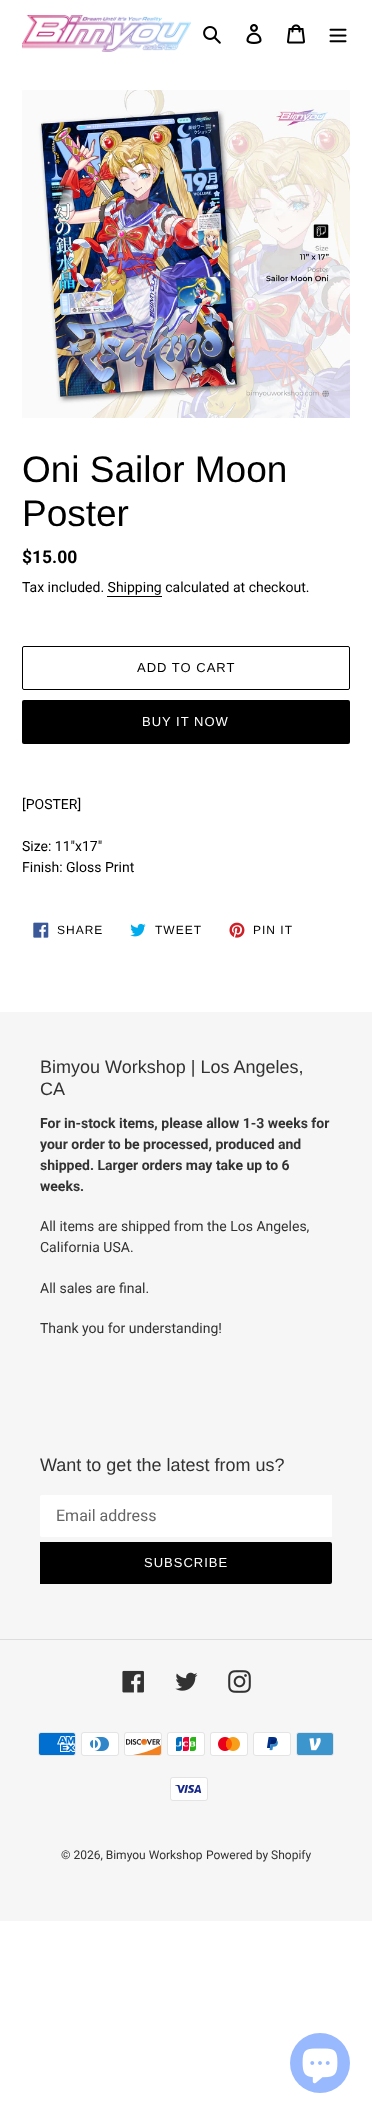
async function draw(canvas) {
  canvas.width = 372;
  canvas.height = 2114;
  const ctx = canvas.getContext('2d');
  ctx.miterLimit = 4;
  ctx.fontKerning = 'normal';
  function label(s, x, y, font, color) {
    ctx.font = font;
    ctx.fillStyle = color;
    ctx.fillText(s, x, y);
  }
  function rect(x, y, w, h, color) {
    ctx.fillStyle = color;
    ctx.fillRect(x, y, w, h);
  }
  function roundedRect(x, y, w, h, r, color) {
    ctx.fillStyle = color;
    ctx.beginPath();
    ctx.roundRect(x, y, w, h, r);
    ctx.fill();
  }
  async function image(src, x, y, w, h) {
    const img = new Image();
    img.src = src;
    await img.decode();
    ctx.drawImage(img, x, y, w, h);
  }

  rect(0, 0, 372, 2114, '#fff');
  await image('assets/img1.png', 22, 15, 169, 37);
  await image('assets/img2.png', 203, 26, 18, 18);
  await image('assets/img3.png', 246, 24, 16, 20);
  await image('assets/img4.png', 287, 24, 18, 20);
  await image('assets/img5.png', 329, 28, 18, 15);
  await image('assets/img6.png', 22, 90, 328, 328);
  label('Oni Sailor Moon', 22, 482, '37px Liberation Sans', '#000');
  label('Poster', 22, 526, '37px Liberation Sans', '#000');
  label('$15.00', 22, 563, 'bold 17.5px Roboto', '#000');
  label('Tax included. Shipping calculated at checkout.', 22, 592, '14px Roboto', '#000');
  rect(107, 596, 55, 1, '#000');
  ctx.beginPath();
  ctx.roundRect(22.5, 646.5, 327, 43, 1.5);
  ctx.strokeStyle = '#000';
  ctx.stroke();
  ctx.letterSpacing = '1px';
  label('ADD TO CART', 137, 672, '13px Liberation Sans', '#000');
  roundedRect(22, 700, 328, 44, 2, '#000');
  label('BUY IT NOW', 142, 726, '13px Liberation Sans', '#fff');
  ctx.letterSpacing = '0px';
  label('[POSTER]', 22, 809, '14px Roboto', '#000');
  label('Size: 11"x17"', 22, 851, '14px Roboto', '#000');
  label('Finish: Gloss Print', 22, 872, '14px Roboto', '#000');
  await image('assets/img7.png', 33, 922, 16, 16);
  ctx.letterSpacing = '1px';
  label('SHARE', 57, 934, '12px Liberation Sans', '#000');
  await image('assets/img8.png', 130, 923, 16, 14);
  label('TWEET', 155, 934, '12px Liberation Sans', '#000');
  await image('assets/img9.png', 229, 922, 16, 16);
  label('PIN IT', 253, 934, '12px Liberation Sans', '#000');
  rect(0, 1012, 372, 909, '#f6f6f6');
  ctx.letterSpacing = '0px';
  label('Bimyou Workshop | Los Angeles,', 40, 1073, '18px Liberation Sans', '#333232');
  label('CA', 40, 1095, '18px Liberation Sans', '#333232');
  label('For in-stock items, please allow 1-3 weeks for', 40, 1128, 'bold 14px Roboto', '#333232');
  label('your order to be processed, produced and', 40, 1149, 'bold 14px Roboto', '#333232');
  label('shipped. Larger orders may take up to 6', 40, 1170, 'bold 14px Roboto', '#333232');
  label('weeks.', 40, 1191, 'bold 14px Roboto', '#333232');
  label('All items are shipped from the Los Angeles,', 40, 1231, '14px Roboto', '#333232');
  label('California USA.', 40, 1252, '14px Roboto', '#333232');
  label('All sales are final.', 40, 1293, '14px Roboto', '#333232');
  label('Thank you for understanding!', 40, 1333, '14px Roboto', '#333232');
  label('Want to get the latest from us?', 40, 1471, '18px Liberation Sans', '#333232');
  ctx.fillStyle = '#fff';
  ctx.beginPath();
  ctx.roundRect(40, 1495, 292, 42, [2, 0, 0, 2]);
  ctx.fill();
  label('Email address', 56, 1521, '16px Roboto', '#666');
  ctx.fillStyle = '#000';
  ctx.beginPath();
  ctx.roundRect(40, 1542, 292, 42, [0, 2, 2, 0]);
  ctx.fill();
  ctx.letterSpacing = '1px';
  label('SUBSCRIBE', 144, 1567, '13px Liberation Sans', '#fff');
  rect(0, 1639, 372, 1, '#ddd');
  await image('assets/img10.png', 122, 1670, 22, 23);
  await image('assets/img11.png', 175, 1672, 23, 19);
  await image('assets/img12.png', 228, 1670, 23, 23);
  await image('assets/img13.png', 38, 1732, 38, 24);
  await image('assets/img14.png', 81, 1732, 38, 24);
  await image('assets/img15.png', 124, 1732, 38, 24);
  await image('assets/img16.png', 167, 1732, 38, 24);
  await image('assets/img17.png', 210, 1732, 38, 24);
  await image('assets/img18.png', 253, 1732, 38, 24);
  await image('assets/img19.png', 296, 1732, 38, 24);
  await image('assets/img20.png', 170, 1777, 38, 24);
  ctx.letterSpacing = '0px';
  label('© 2026, Bimyou Workshop', 61, 1859, '12px Roboto', '#333232');
  label('Powered by Shopify', 206, 1859, '12px Roboto', '#333232');
  ctx.fillStyle = '#99b9ff';
  ctx.beginPath();
  ctx.arc(320, 2063, 30, 0, 2 * Math.PI);
  ctx.fill();
  await image('assets/img21.png', 302, 2048, 36, 36);
}

draw(document.querySelector('canvas'));
